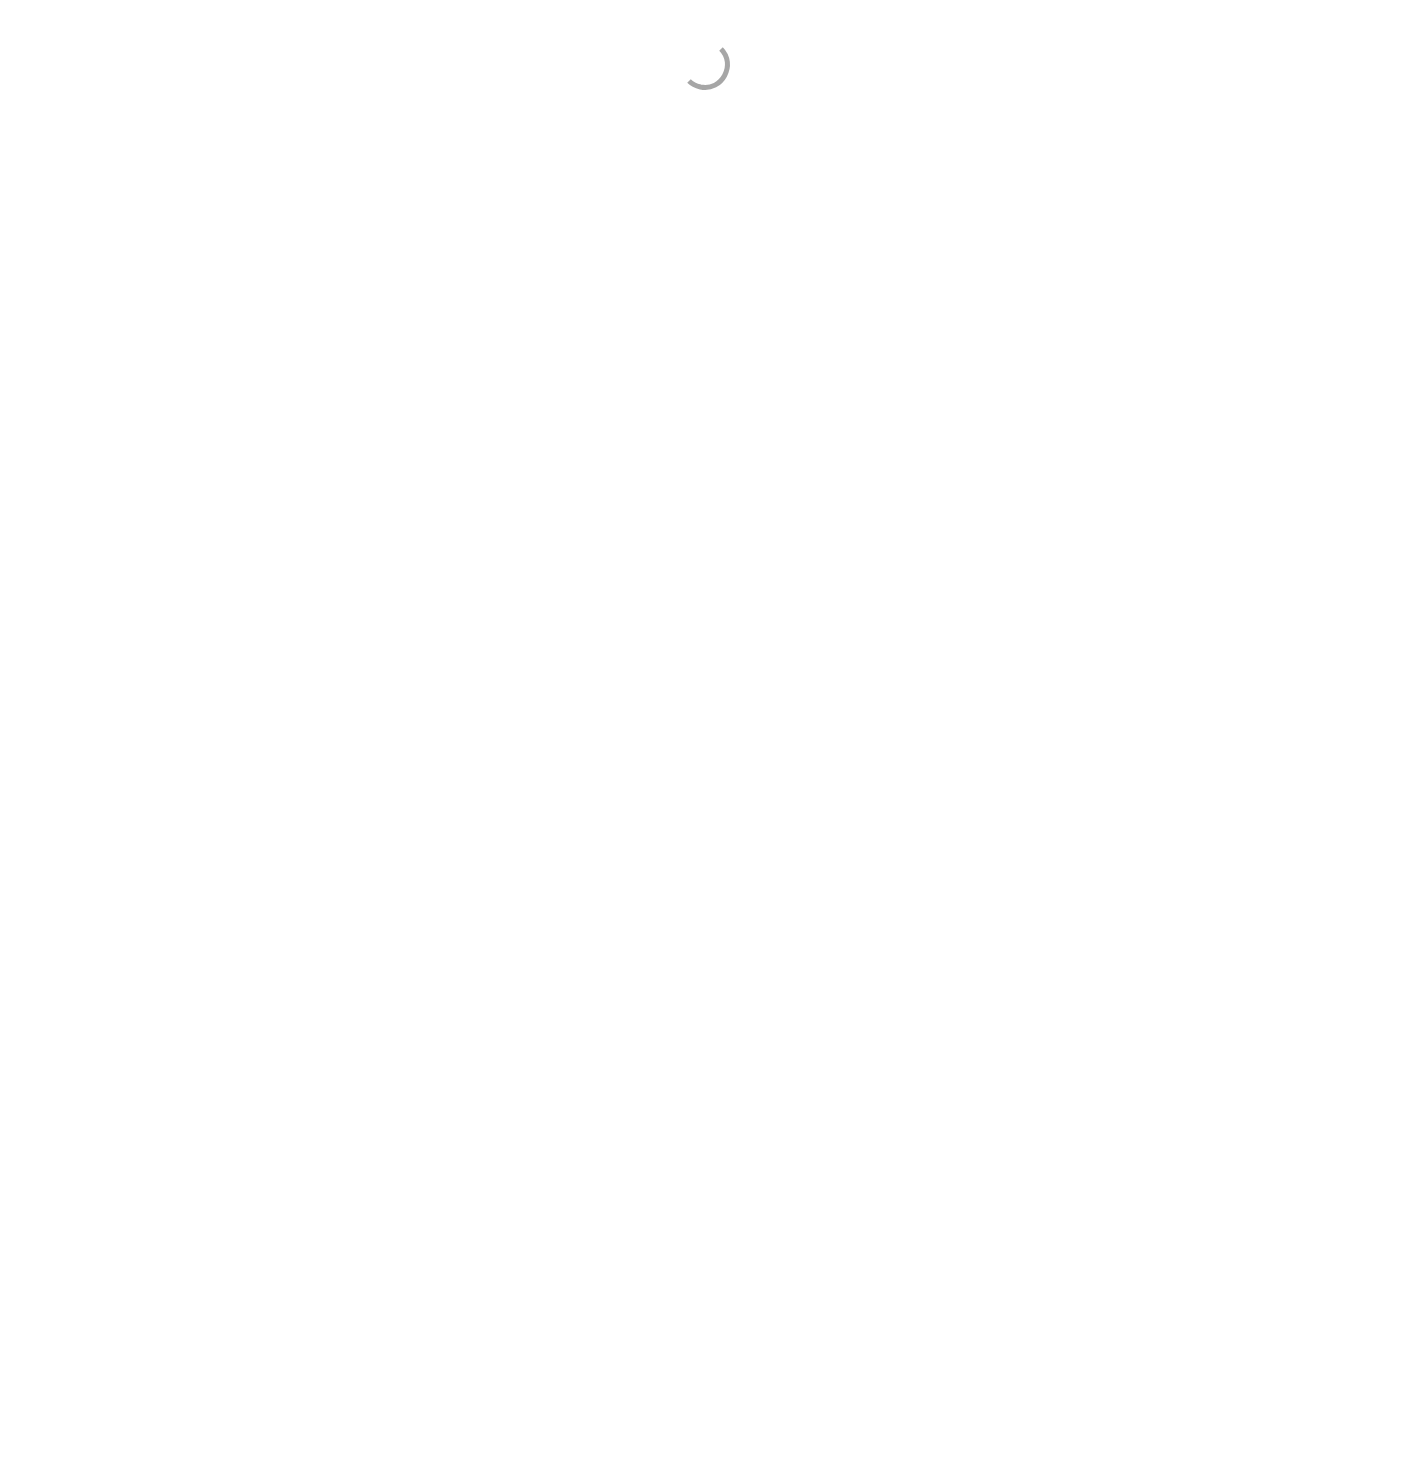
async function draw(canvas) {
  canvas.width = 1409;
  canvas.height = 1474;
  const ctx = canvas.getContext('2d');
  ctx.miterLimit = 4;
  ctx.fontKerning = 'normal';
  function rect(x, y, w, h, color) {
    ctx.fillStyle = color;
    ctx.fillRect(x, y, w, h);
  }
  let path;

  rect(0, 0, 1409, 1474, '#fff');
  path = new Path2D('M721 49C736.5 64.5 722 91.5 700.5 87C696.5 86 692 84 689 81');
  ctx.strokeStyle = '#a6a6a6';
  ctx.lineWidth = 5;
  ctx.stroke(path);
}

draw(document.querySelector('canvas'));
